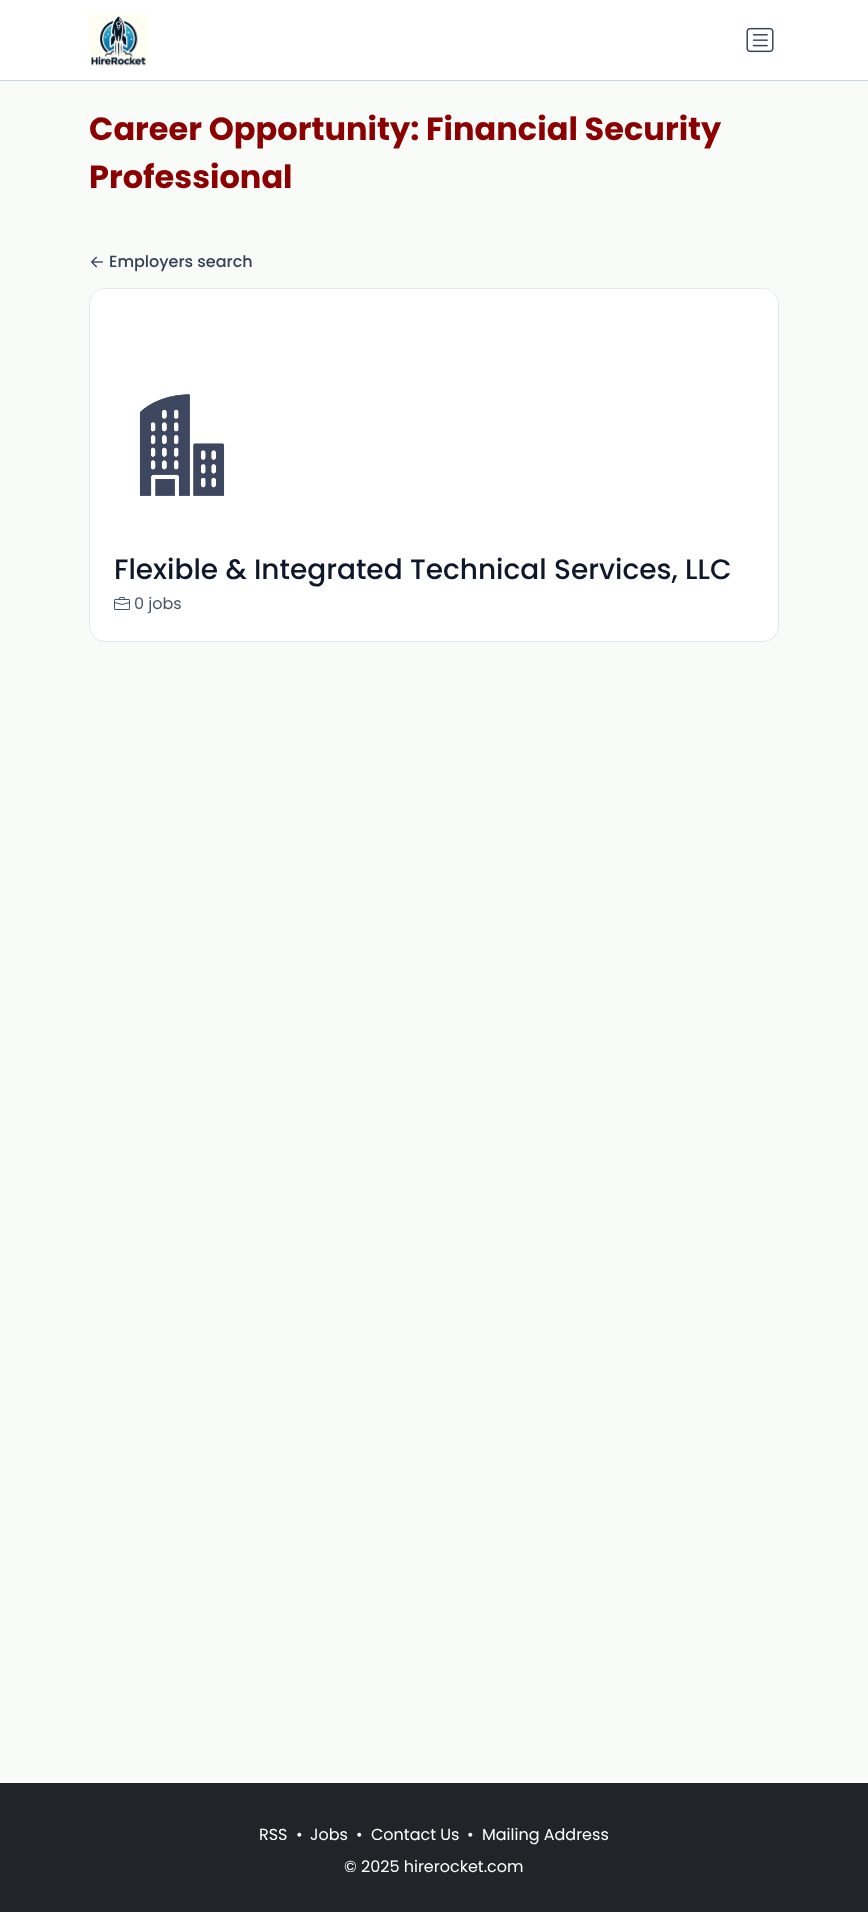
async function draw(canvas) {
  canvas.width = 868;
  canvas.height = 1912;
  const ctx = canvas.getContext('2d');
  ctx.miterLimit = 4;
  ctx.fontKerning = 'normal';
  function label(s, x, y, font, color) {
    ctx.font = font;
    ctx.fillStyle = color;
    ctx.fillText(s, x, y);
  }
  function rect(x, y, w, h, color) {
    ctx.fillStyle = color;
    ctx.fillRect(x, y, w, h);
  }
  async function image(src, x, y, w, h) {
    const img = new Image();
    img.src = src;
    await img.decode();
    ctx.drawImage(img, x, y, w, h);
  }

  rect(0, 0, 868, 1912, '#f9fbf9');
  rect(0, 0, 868, 80, '#fff');
  rect(0, 80, 868, 1, '#cbd5e1');
  await image('assets/img1.png', 89, 14, 59, 52);
  await image('assets/img2.png', 746, 27, 28, 26);
  label('Career Opportunity: Financial Security', 89, 140, 'bold 32px Poppins', '#8b0000');
  label('Professional', 89, 188, 'bold 32px Poppins', '#8b0000');
  await image('assets/img3.png', 91, 256, 12, 12);
  label('Employers search', 109, 267, '500 16px Poppins', '#334155');
  ctx.fillStyle = '#fff';
  ctx.beginPath();
  ctx.roundRect(89.5, 288.5, 689, 353, 15.5);
  ctx.fill();
  ctx.strokeStyle = '#e2e8f0';
  ctx.stroke();
  ctx.beginPath();
  ctx.roundRect(90, 289, 688, 200, [15, 15, 0, 0]);
  ctx.fill();
  await image('assets/img4.png', 139, 394, 86, 102);
  label('Flexible & Integrated Technical Services, LLC', 114, 579, '500 28px Poppins', '#0f172a');
  await image('assets/img5.png', 114, 597, 16, 13);
  label('0 jobs', 134, 609, '16px Poppins', '#475569');
  rect(0, 1783, 868, 129, '#212529');
  label('RSS', 259, 1840, '16px Poppins', '#fff');
  label('•', 296, 1840, '16px Poppins', '#fff');
  label('Jobs', 310, 1840, '16px Poppins', '#fff');
  label('•', 356, 1840, '16px Poppins', '#fff');
  label('Contact Us', 371, 1840, '16px Poppins', '#fff');
  label('•', 467, 1840, '16px Poppins', '#fff');
  label('Mailing Address', 482, 1840, '16px Poppins', '#fff');
  label('© 2025 hirerocket.com', 344, 1872, '16px Poppins', '#fff');
}

draw(document.querySelector('canvas'));
